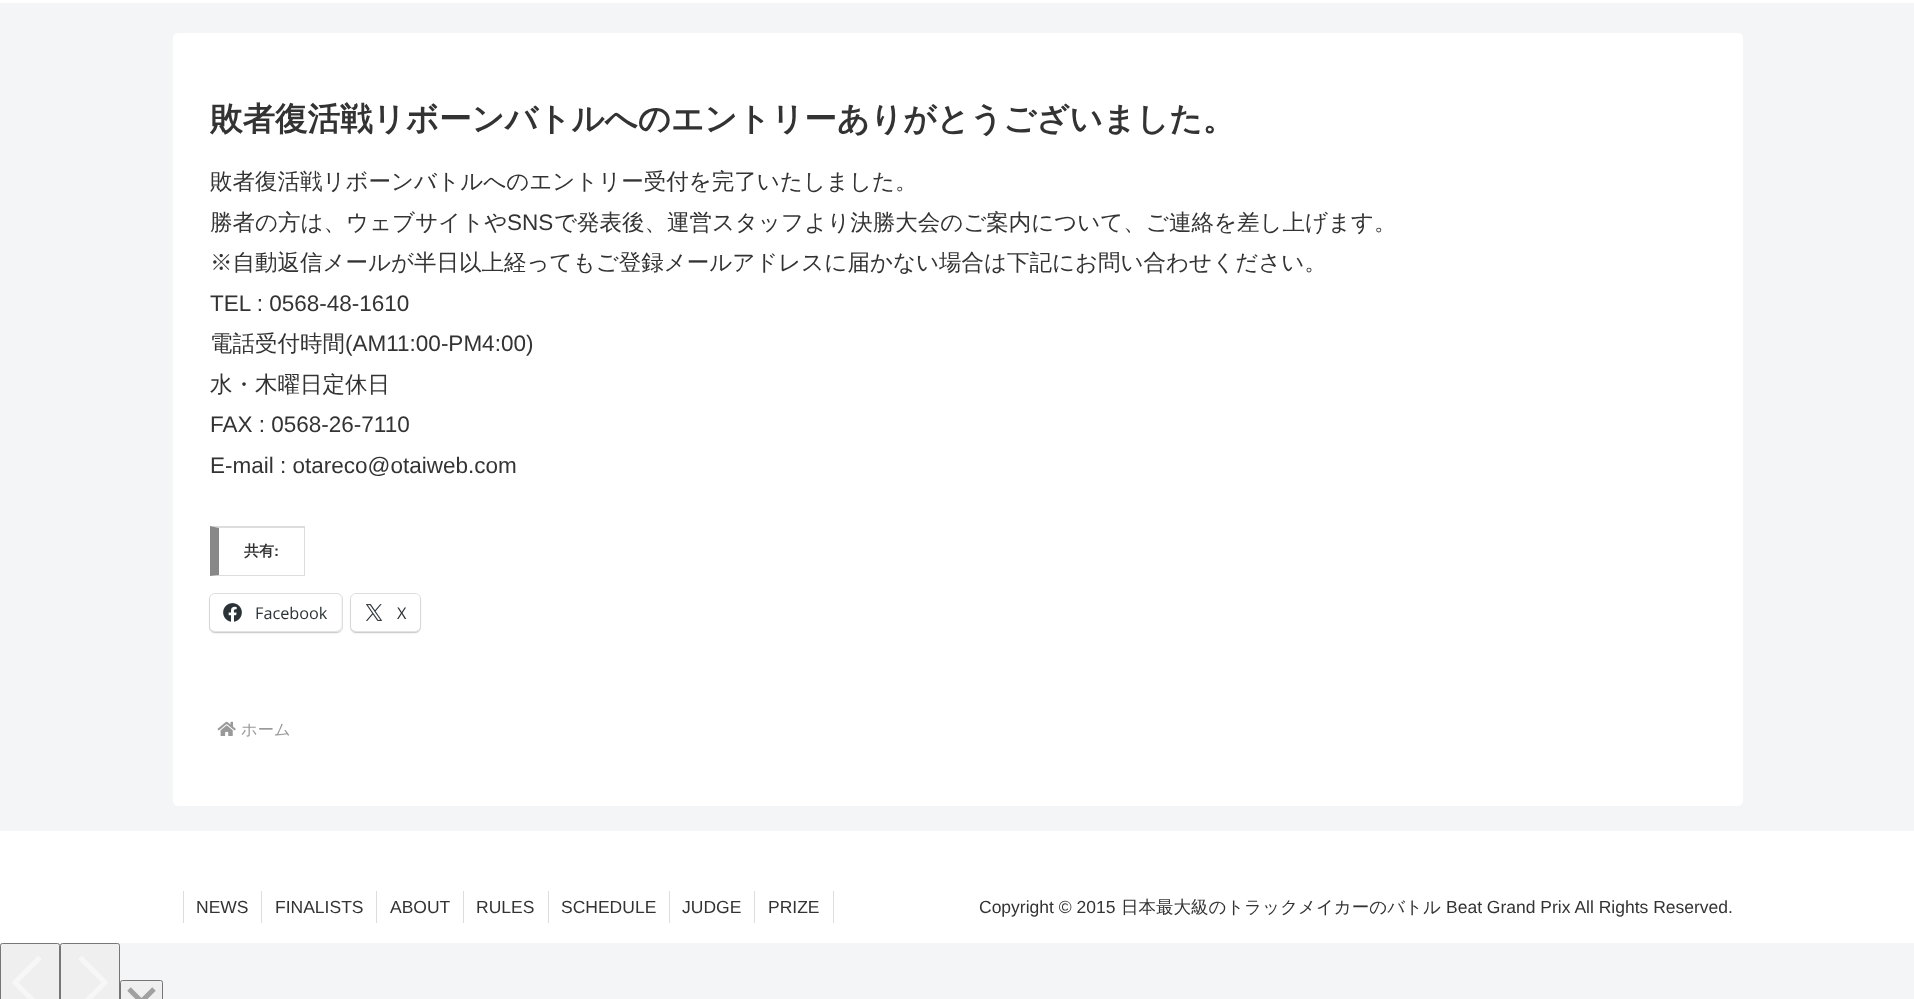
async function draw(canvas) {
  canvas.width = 1914;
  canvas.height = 999;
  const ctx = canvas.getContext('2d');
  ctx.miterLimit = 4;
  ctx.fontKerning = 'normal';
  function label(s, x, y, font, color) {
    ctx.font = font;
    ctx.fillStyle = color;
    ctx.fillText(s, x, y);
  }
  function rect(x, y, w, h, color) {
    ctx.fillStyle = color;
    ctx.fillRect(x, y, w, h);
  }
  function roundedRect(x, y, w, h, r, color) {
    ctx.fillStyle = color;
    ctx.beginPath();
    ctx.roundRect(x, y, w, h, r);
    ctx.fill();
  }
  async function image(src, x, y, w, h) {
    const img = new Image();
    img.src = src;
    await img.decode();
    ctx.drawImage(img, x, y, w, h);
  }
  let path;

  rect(0, 0, 1914, 999, '#f4f5f7');
  rect(0, 0, 1914, 3, '#fff');
  roundedRect(173, 33, 1570, 773, 5, '#fff');
  label('敗者復活戦リボーンバトルへのエントリーありがとうございました。', 210, 130, 'bold 32.5px WenQuanYi Zen Hei', '#333');
  label('敗者復活戦リボーンバトルへのエントリー受付を完了いたしました。', 210, 189, '500 22.5px WenQuanYi Zen Hei', '#333');
  label('勝者の方は、ウェブサイトや', 210, 230, '500 22.5px WenQuanYi Zen Hei', '#333');
  label('SNS', 507, 230, '22.5px Liberation Sans', '#333');
  label('で発表後、運営スタッフより決勝大会のご案内について、ご連絡を差し上げます。', 554, 230, '500 22.5px WenQuanYi Zen Hei', '#333');
  label('※自動返信メールが半日以上経ってもご登録メールアドレスに届かない場合は下記にお問い合わせください。', 210, 270, '500 22.5px WenQuanYi Zen Hei', '#333');
  label('TEL : 0568-48-1610', 210, 311, '22.5px Liberation Sans', '#333');
  label('電話受付時間', 210, 351, '500 22.5px WenQuanYi Zen Hei', '#333');
  label('(AM11:00-PM4:00)', 345, 351, '22.5px Liberation Sans', '#333');
  label('水・木曜日定休日', 210, 392, '500 22.5px WenQuanYi Zen Hei', '#333');
  label('FAX : 0568-26-7110', 210, 432, '22.5px Liberation Sans', '#333');
  label('E-mail : otareco@otaiweb.com', 210, 473, '22.5px Liberation Sans', '#333');
  ctx.fillStyle = '#ddd';
  path = new Path2D('M210 526H305L304 528H219Z');
  ctx.fill(path);
  rect(304, 526, 1, 50, '#ddd');
  path = new Path2D('M305 576H210L219 575H304Z');
  ctx.fill(path);
  ctx.fillStyle = '#888';
  path = new Path2D('M210 576V526L219 528V575Z');
  ctx.fill(path);
  label('共有', 244, 556, 'bold 15px WenQuanYi Zen Hei', '#333');
  label(':', 274, 556, 'bold 15px Liberation Sans', '#333');
  ctx.beginPath();
  ctx.roundRect(209.5, 593.5, 133, 39, 5.5);
  ctx.strokeStyle = '#e0e0e0';
  ctx.stroke();
  ctx.fillStyle = '#0000001f';
  ctx.filter = 'blur(1px)';
  ctx.beginPath();
  ctx.roundRect(210, 595, 131, 38, 5);
  ctx.fill();
  ctx.filter = 'none';
  roundedRect(210, 594, 131, 37, 5, '#fff');
  await image('assets/img1.png', 223, 603, 19, 19);
  label('Facebook', 255, 619, '16.25px Open Sans', '#2c3338');
  ctx.beginPath();
  ctx.roundRect(350.5, 593.5, 70, 39, 5.5);
  ctx.stroke();
  ctx.fillStyle = '#0000001f';
  ctx.filter = 'blur(1px)';
  ctx.beginPath();
  ctx.roundRect(351, 595, 69, 38, 5);
  ctx.fill();
  ctx.filter = 'none';
  roundedRect(351, 594, 69, 37, 5, '#fff');
  await image('assets/img2.png', 365, 604, 18, 17);
  label('X', 397, 619, '16.25px Open Sans', '#2c3338');
  await image('assets/img3.png', 217, 721, 19, 15);
  label('ホーム', 241, 735, '500 16.25px WenQuanYi Zen Hei', '#999');
  rect(0, 831, 1914, 112, '#fff');
  rect(183, 891, 1, 32, '#ddd');
  label('NEWS', 196, 913, '17.5px Liberation Sans', '#333');
  rect(261, 891, 1, 32, '#ddd');
  label('FINALISTS', 275, 913, '17.5px Liberation Sans', '#333');
  rect(376, 891, 1, 32, '#ddd');
  label('ABOUT', 390, 913, '17.5px Liberation Sans', '#333');
  rect(463, 891, 1, 32, '#ddd');
  label('RULES', 476, 913, '17.5px Liberation Sans', '#333');
  rect(548, 891, 1, 32, '#ddd');
  label('SCHEDULE', 561, 913, '17.5px Liberation Sans', '#333');
  rect(669, 891, 1, 32, '#ddd');
  label('JUDGE', 682, 913, '17.5px Liberation Sans', '#333');
  rect(833, 891, 1, 32, '#ddd');
  rect(754, 891, 1, 32, '#ddd');
  label('PRIZE', 768, 913, '17.5px Liberation Sans', '#333');
  label('Copyright © 2015', 979, 913, '17.5px Liberation Sans', '#333');
  label('日本最大級のトラックメイカーのバトル', 1121, 913, '500 17.5px WenQuanYi Zen Hei', '#333');
  label('Beat Grand Prix All Rights Reserved.', 1446, 913, '17.5px Liberation Sans', '#333');
  ctx.fillStyle = '#efefef';
  ctx.beginPath();
  ctx.roundRect(0.5, 943.5, 59, 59, 2);
  ctx.fill();
  ctx.strokeStyle = '#767676';
  ctx.stroke();
  path = new Path2D('M40 957.5L15 982.5L40 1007.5');
  ctx.strokeStyle = '#f7f7f7';
  ctx.lineWidth = 5;
  ctx.lineJoin = 'round';
  ctx.stroke(path);
  ctx.beginPath();
  ctx.roundRect(60.5, 943.5, 59, 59, 2);
  ctx.fill();
  ctx.strokeStyle = '#767676';
  ctx.lineWidth = 1;
  ctx.lineJoin = 'miter';
  ctx.stroke();
  path = new Path2D('M80 957.5L105 982.5L80 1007.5');
  ctx.strokeStyle = '#f7f7f7';
  ctx.lineWidth = 5;
  ctx.lineJoin = 'round';
  ctx.stroke(path);
  ctx.beginPath();
  ctx.roundRect(120.5, 980.5, 42, 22, 2);
  ctx.fill();
  ctx.strokeStyle = '#767676';
  ctx.lineWidth = 1;
  ctx.lineJoin = 'miter';
  ctx.stroke();
  path = new Path2D('M129 989L154 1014M129 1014L154 989');
  ctx.strokeStyle = '#a0a0a0';
  ctx.lineWidth = 5;
  ctx.stroke(path);
}

draw(document.querySelector('canvas'));
